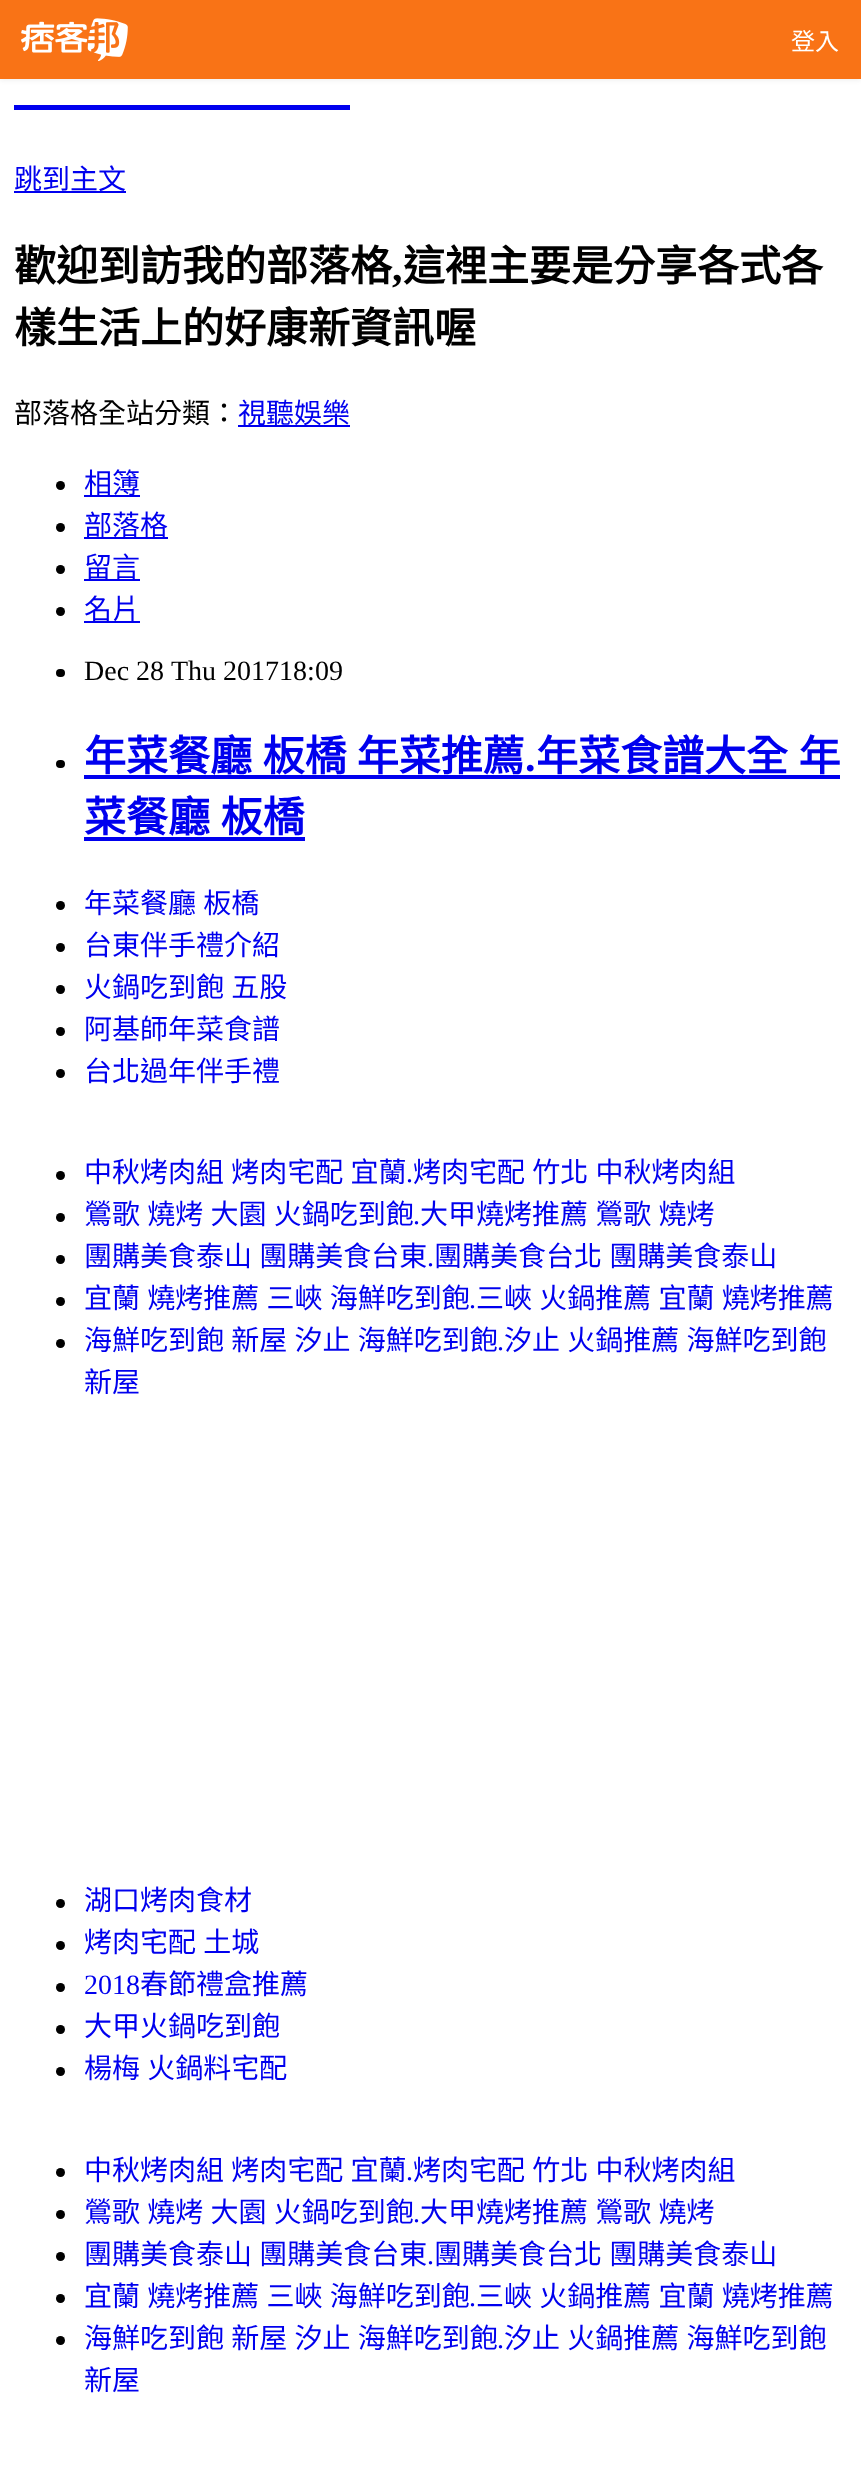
async function draw(canvas) {
  canvas.width = 861;
  canvas.height = 2476;
  const ctx = canvas.getContext('2d');
  ctx.miterLimit = 4;
  ctx.fontKerning = 'normal';
  function label(s, x, y, font, color) {
    ctx.font = font;
    ctx.fillStyle = color;
    ctx.fillText(s, x, y);
  }
  function rect(x, y, w, h, color) {
    ctx.fillStyle = color;
    ctx.fillRect(x, y, w, h);
  }
  function roundedRect(x, y, w, h, r, color) {
    ctx.fillStyle = color;
    ctx.beginPath();
    ctx.roundRect(x, y, w, h, r);
    ctx.fill();
  }
  async function image(src, x, y, w, h) {
    const img = new Image();
    img.src = src;
    await img.decode();
    ctx.drawImage(img, x, y, w, h);
  }

  rect(0, 0, 861, 2476, '#fff');
  ctx.fillStyle = '#0000000d';
  ctx.filter = 'blur(2px)';
  ctx.beginPath();
  ctx.rect(0, 2, 861, 79);
  ctx.fill();
  ctx.filter = 'none';
  rect(0, 0, 861, 79, '#f97316');
  await image('assets/img1.png', 21, 18, 107, 43);
  label('登入', 791, 50, '24px Noto Sans CJK TC', '#fff');
  rect(14, 105, 336, 5, '#00e');
  rect(14, 191, 112, 2, '#00e');
  label('跳到主文', 14, 189, '28px Noto Sans CJK TC', '#00e');
  label('歡迎到訪我的部落格', 14, 281, 'bold 42px Noto Sans CJK TC', '#000');
  label(',', 392, 281, 'bold 42px Liberation Serif', '#000');
  label('這裡主要是分享各式各', 403, 281, 'bold 42px Noto Sans CJK TC', '#000');
  label('樣生活上的好康新資訊喔', 14, 343, 'bold 42px Noto Sans CJK TC', '#000');
  label('部落格全站分類：', 14, 423, '28px Noto Sans CJK TC', '#000');
  rect(238, 425, 112, 2, '#00e');
  label('視聽娛樂', 238, 423, '28px Noto Sans CJK TC', '#00e');
  ctx.fillStyle = '#000';
  ctx.beginPath();
  ctx.arc(60.5, 485.5, 4.5, 0, 2 * Math.PI);
  ctx.fill();
  rect(84, 495, 56, 2, '#00e');
  label('相簿', 84, 493, '28px Noto Sans CJK TC', '#00e');
  ctx.fillStyle = '#000';
  ctx.beginPath();
  ctx.arc(60.5, 527.5, 4.5, 0, 2 * Math.PI);
  ctx.fill();
  rect(84, 537, 84, 2, '#00e');
  label('部落格', 84, 535, '28px Noto Sans CJK TC', '#00e');
  ctx.fillStyle = '#000';
  ctx.beginPath();
  ctx.arc(60.5, 569.5, 4.5, 0, 2 * Math.PI);
  ctx.fill();
  rect(84, 579, 56, 2, '#00e');
  label('留言', 84, 577, '28px Noto Sans CJK TC', '#00e');
  ctx.fillStyle = '#000';
  ctx.beginPath();
  ctx.arc(60.5, 611.5, 4.5, 0, 2 * Math.PI);
  ctx.fill();
  rect(84, 621, 56, 2, '#00e');
  label('名片', 84, 619, '28px Noto Sans CJK TC', '#00e');
  roundedRect(56, 669, 9, 8, 4, '#000');
  label('Dec 28', 84, 680, '28px Liberation Serif', '#000');
  label('Thu 201718:09', 171, 680, '28px Liberation Serif', '#000');
  roundedRect(56, 760, 9, 8, 4, '#000');
  ctx.wordSpacing = '1px';
  label('年菜餐廳 板橋 年菜推薦', 84, 771, 'bold 42px Noto Sans CJK TC', '#00e');
  ctx.wordSpacing = '0px';
  label('.', 525, 771, 'bold 42px Liberation Serif', '#00e');
  rect(84, 775, 756, 4, '#00e');
  ctx.wordSpacing = '1px';
  label('年菜食譜大全 年', 536, 771, 'bold 42px Noto Sans CJK TC', '#00e');
  label('菜餐廳 板橋', 84, 832, 'bold 42px Noto Sans CJK TC', '#00e');
  rect(84, 837, 221, 4, '#00e');
  ctx.fillStyle = '#000';
  ctx.beginPath();
  ctx.arc(60.5, 905.5, 4.5, 0, 2 * Math.PI);
  ctx.fill();
  label('年菜餐廳 板橋', 84, 913, '28px Noto Sans CJK TC', '#00e');
  ctx.fillStyle = '#000';
  ctx.beginPath();
  ctx.arc(60.5, 947.5, 4.5, 0, 2 * Math.PI);
  ctx.fill();
  ctx.wordSpacing = '0px';
  label('台東伴手禮介紹', 84, 955, '28px Noto Sans CJK TC', '#00e');
  ctx.fillStyle = '#000';
  ctx.beginPath();
  ctx.arc(60.5, 989.5, 4.5, 0, 2 * Math.PI);
  ctx.fill();
  ctx.wordSpacing = '1px';
  label('火鍋吃到飽 五股', 84, 997, '28px Noto Sans CJK TC', '#00e');
  ctx.fillStyle = '#000';
  ctx.beginPath();
  ctx.arc(60.5, 1031.5, 4.5, 0, 2 * Math.PI);
  ctx.fill();
  ctx.wordSpacing = '0px';
  label('阿基師年菜食譜', 84, 1039, '28px Noto Sans CJK TC', '#00e');
  ctx.fillStyle = '#000';
  ctx.beginPath();
  ctx.arc(60.5, 1073.5, 4.5, 0, 2 * Math.PI);
  ctx.fill();
  label('台北過年伴手禮', 84, 1081, '28px Noto Sans CJK TC', '#00e');
  ctx.fillStyle = '#000';
  ctx.beginPath();
  ctx.arc(60.5, 1175.5, 4.5, 0, 2 * Math.PI);
  ctx.fill();
  ctx.wordSpacing = '1px';
  label('中秋烤肉組 烤肉宅配 宜蘭', 84, 1182, '28px Noto Sans CJK TC', '#00e');
  label('烤肉宅配 竹北 中秋烤肉組', 413, 1182, '28px Noto Sans CJK TC', '#00e');
  ctx.wordSpacing = '0px';
  label('.', 406, 1182, '28px Liberation Serif', '#00e');
  ctx.fillStyle = '#000';
  ctx.beginPath();
  ctx.arc(60.5, 1217.5, 4.5, 0, 2 * Math.PI);
  ctx.fill();
  ctx.wordSpacing = '1px';
  label('鶯歌 燒烤 大園 火鍋吃到飽', 84, 1224, '28px Noto Sans CJK TC', '#00e');
  label('大甲燒烤推薦 鶯歌 燒烤', 420, 1224, '28px Noto Sans CJK TC', '#00e');
  ctx.wordSpacing = '0px';
  label('.', 413, 1224, '28px Liberation Serif', '#00e');
  ctx.fillStyle = '#000';
  ctx.beginPath();
  ctx.arc(60.5, 1259.5, 4.5, 0, 2 * Math.PI);
  ctx.fill();
  ctx.wordSpacing = '1px';
  label('團購美食泰山 團購美食台東', 84, 1266, '28px Noto Sans CJK TC', '#00e');
  label('團購美食台北 團購美食泰山', 434, 1266, '28px Noto Sans CJK TC', '#00e');
  ctx.wordSpacing = '0px';
  label('.', 427, 1266, '28px Liberation Serif', '#00e');
  ctx.fillStyle = '#000';
  ctx.beginPath();
  ctx.arc(60.5, 1301.5, 4.5, 0, 2 * Math.PI);
  ctx.fill();
  ctx.wordSpacing = '1px';
  label('宜蘭 燒烤推薦 三峽 海鮮吃到飽', 84, 1308, '28px Noto Sans CJK TC', '#00e');
  label('三峽 火鍋推薦 宜蘭 燒烤推薦', 476, 1308, '28px Noto Sans CJK TC', '#00e');
  ctx.wordSpacing = '0px';
  label('.', 469, 1308, '28px Liberation Serif', '#00e');
  ctx.fillStyle = '#000';
  ctx.beginPath();
  ctx.arc(60.5, 1343.5, 4.5, 0, 2 * Math.PI);
  ctx.fill();
  ctx.wordSpacing = '1px';
  label('海鮮吃到飽 新屋 汐止 海鮮吃到飽', 84, 1350, '28px Noto Sans CJK TC', '#00e');
  label('汐止 火鍋推薦 海鮮吃到飽', 504, 1350, '28px Noto Sans CJK TC', '#00e');
  ctx.wordSpacing = '0px';
  label('.', 497, 1350, '28px Liberation Serif', '#00e');
  label('新屋', 84, 1392, '28px Noto Sans CJK TC', '#00e');
  ctx.fillStyle = '#000';
  ctx.beginPath();
  ctx.arc(60.5, 1903.5, 4.5, 0, 2 * Math.PI);
  ctx.fill();
  label('湖口烤肉食材', 84, 1910, '28px Noto Sans CJK TC', '#00e');
  ctx.fillStyle = '#000';
  ctx.beginPath();
  ctx.arc(60.5, 1945.5, 4.5, 0, 2 * Math.PI);
  ctx.fill();
  ctx.wordSpacing = '1px';
  label('烤肉宅配 土城', 84, 1952, '28px Noto Sans CJK TC', '#00e');
  ctx.fillStyle = '#000';
  ctx.beginPath();
  ctx.arc(60.5, 1987.5, 4.5, 0, 2 * Math.PI);
  ctx.fill();
  ctx.wordSpacing = '0px';
  label('2018', 84, 1994, '28px Liberation Serif', '#00e');
  label('春節禮盒推薦', 140, 1994, '28px Noto Sans CJK TC', '#00e');
  ctx.fillStyle = '#000';
  ctx.beginPath();
  ctx.arc(60.5, 2029.5, 4.5, 0, 2 * Math.PI);
  ctx.fill();
  label('大甲火鍋吃到飽', 84, 2036, '28px Noto Sans CJK TC', '#00e');
  ctx.fillStyle = '#000';
  ctx.beginPath();
  ctx.arc(60.5, 2071.5, 4.5, 0, 2 * Math.PI);
  ctx.fill();
  ctx.wordSpacing = '1px';
  label('楊梅 火鍋料宅配', 84, 2078, '28px Noto Sans CJK TC', '#00e');
  ctx.fillStyle = '#000';
  ctx.beginPath();
  ctx.arc(60.5, 2172.5, 4.5, 0, 2 * Math.PI);
  ctx.fill();
  label('中秋烤肉組 烤肉宅配 宜蘭', 84, 2180, '28px Noto Sans CJK TC', '#00e');
  label('烤肉宅配 竹北 中秋烤肉組', 413, 2180, '28px Noto Sans CJK TC', '#00e');
  ctx.wordSpacing = '0px';
  label('.', 406, 2180, '28px Liberation Serif', '#00e');
  ctx.fillStyle = '#000';
  ctx.beginPath();
  ctx.arc(60.5, 2214.5, 4.5, 0, 2 * Math.PI);
  ctx.fill();
  ctx.wordSpacing = '1px';
  label('鶯歌 燒烤 大園 火鍋吃到飽', 84, 2222, '28px Noto Sans CJK TC', '#00e');
  label('大甲燒烤推薦 鶯歌 燒烤', 420, 2222, '28px Noto Sans CJK TC', '#00e');
  ctx.wordSpacing = '0px';
  label('.', 413, 2222, '28px Liberation Serif', '#00e');
  ctx.fillStyle = '#000';
  ctx.beginPath();
  ctx.arc(60.5, 2256.5, 4.5, 0, 2 * Math.PI);
  ctx.fill();
  ctx.wordSpacing = '1px';
  label('團購美食泰山 團購美食台東', 84, 2264, '28px Noto Sans CJK TC', '#00e');
  label('團購美食台北 團購美食泰山', 434, 2264, '28px Noto Sans CJK TC', '#00e');
  ctx.wordSpacing = '0px';
  label('.', 427, 2264, '28px Liberation Serif', '#00e');
  ctx.fillStyle = '#000';
  ctx.beginPath();
  ctx.arc(60.5, 2298.5, 4.5, 0, 2 * Math.PI);
  ctx.fill();
  ctx.wordSpacing = '1px';
  label('宜蘭 燒烤推薦 三峽 海鮮吃到飽', 84, 2306, '28px Noto Sans CJK TC', '#00e');
  label('三峽 火鍋推薦 宜蘭 燒烤推薦', 476, 2306, '28px Noto Sans CJK TC', '#00e');
  ctx.wordSpacing = '0px';
  label('.', 469, 2306, '28px Liberation Serif', '#00e');
  ctx.fillStyle = '#000';
  ctx.beginPath();
  ctx.arc(60.5, 2340.5, 4.5, 0, 2 * Math.PI);
  ctx.fill();
  ctx.wordSpacing = '1px';
  label('海鮮吃到飽 新屋 汐止 海鮮吃到飽', 84, 2348, '28px Noto Sans CJK TC', '#00e');
  label('汐止 火鍋推薦 海鮮吃到飽', 504, 2348, '28px Noto Sans CJK TC', '#00e');
  ctx.wordSpacing = '0px';
  label('.', 497, 2348, '28px Liberation Serif', '#00e');
  label('新屋', 84, 2390, '28px Noto Sans CJK TC', '#00e');
}

draw(document.querySelector('canvas'));
